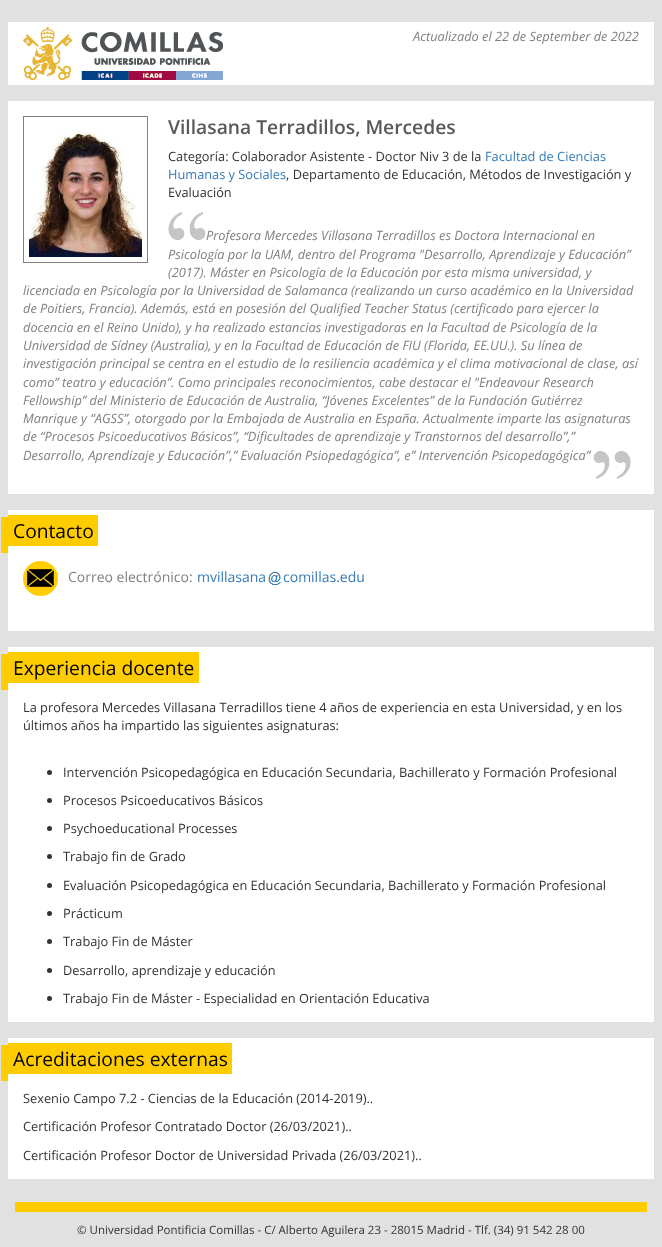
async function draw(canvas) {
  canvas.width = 662;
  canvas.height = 1247;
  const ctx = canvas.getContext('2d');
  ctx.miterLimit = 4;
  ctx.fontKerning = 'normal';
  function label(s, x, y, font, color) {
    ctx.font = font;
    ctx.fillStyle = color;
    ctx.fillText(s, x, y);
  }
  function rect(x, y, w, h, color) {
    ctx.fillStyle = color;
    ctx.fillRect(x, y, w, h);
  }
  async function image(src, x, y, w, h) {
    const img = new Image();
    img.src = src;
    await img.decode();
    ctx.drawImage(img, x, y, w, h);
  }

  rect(0, 0, 662, 1247, '#e1e1e1');
  rect(8, 22, 646, 63, '#fff');
  await image('assets/img1.png', 23, 27, 200, 53);
  label('Actualizado el 22 de September de 2022', 413, 41, 'italic 12.8px Open Sans', '#808080');
  rect(8, 101, 646, 393, '#fff');
  ctx.strokeStyle = '#808080';
  ctx.strokeRect(23.5, 116.5, 124, 146);
  await image('assets/img2.png', 29, 132, 113, 125);
  label('Villasana Terradillos, Mercedes', 168, 134, '600 19.25px Open Sans', '#585858');
  label('Categoría: Colaborador Asistente - Doctor Niv 3 de la', 168, 161, '12.8px Open Sans', '#333');
  label('Facultad de Ciencias', 485, 161, '12.8px Open Sans', '#337ab7');
  label('Humanas y Sociales', 168, 179, '12.8px Open Sans', '#337ab7');
  label(', Departamento de Educación, Métodos de Investigación y', 286, 179, '12.8px Open Sans', '#333');
  label('Evaluación', 168, 197, '12.8px Open Sans', '#333');
  await image('assets/img3.png', 168, 212, 38, 28);
  label('Profesora Mercedes Villasana Terradillos es Doctora Internacional en', 206, 240, 'italic 12.8px Open Sans', '#808080');
  label('Psicología por la UAM, dentro del Programa "Desarrollo, Aprendizaje y Educación”', 168, 259, 'italic 12.8px Open Sans', '#808080');
  label('(2017). Máster en Psicología de la Educación por esta misma universidad, y', 168, 277, 'italic 12.8px Open Sans', '#808080');
  label('licenciada en Psicología por la Universidad de Salamanca (realizando un curso académico en la Universidad', 23, 295, 'italic 12.8px Open Sans', '#808080');
  label('de Poitiers, Francia). Además, está en posesión del Qualified Teacher Status (certificado para ejercer la', 23, 313, 'italic 12.8px Open Sans', '#808080');
  label('docencia en el Reino Unido), y ha realizado estancias investigadoras en la Facultad de Psicología de la', 23, 332, 'italic 12.8px Open Sans', '#808080');
  label('Universidad de Sídney (Australia), y en la Facultad de Educación de FIU (Florida, EE.UU.). Su línea de', 23, 350, 'italic 12.8px Open Sans', '#808080');
  label('investigación principal se centra en el estudio de la resiliencia académica y el clima motivacional de clase, así', 23, 368, 'italic 12.8px Open Sans', '#808080');
  label('como” teatro y educación”. Como principales reconocimientos, cabe destacar el "Endeavour Research', 23, 387, 'italic 12.8px Open Sans', '#808080');
  label('Fellowship” del Ministerio de Educación de Australia, “Jóvenes Excelentes” de la Fundación Gutiérrez', 23, 405, 'italic 12.8px Open Sans', '#808080');
  label('Manrique y “AGSS”, otorgado por la Embajada de Australia en España. Actualmente imparte las asignaturas', 23, 423, 'italic 12.8px Open Sans', '#808080');
  label('de “Procesos Psicoeducativos Básicos”, “Dificultades de aprendizaje y Transtornos del desarrollo”,”', 23, 441, 'italic 12.8px Open Sans', '#808080');
  label('Desarrollo, Aprendizaje y Educación”,” Evaluación Psiopedagógica”, e” Intervención Psicopedagógica”', 23, 460, 'italic 12.8px Open Sans', '#808080');
  await image('assets/img4.png', 593, 451, 38, 28);
  rect(8, 510, 646, 121, '#fff');
  rect(8, 515, 90, 31, '#fc0');
  label('Contacto', 13, 538, '19.25px Open Sans', '#000');
  rect(1, 517, 7, 36, '#fc0');
  await image('assets/img5.png', 23, 561, 35, 35);
  label('Correo electrónico:', 68, 582, '14px Open Sans', '#808080');
  label('mvillasana', 197, 582, '14px Open Sans', '#337ab7');
  await image('assets/img6.png', 268, 572, 14, 13);
  label('comillas.edu', 283, 582, '14px Open Sans', '#337ab7');
  rect(8, 647, 646, 375, '#fff');
  rect(8, 652, 191, 31, '#fc0');
  label('Experiencia docente', 13, 675, '19.25px Open Sans', '#000');
  rect(1, 654, 7, 36, '#fc0');
  label('La profesora Mercedes Villasana Terradillos tiene 4 años de experiencia en esta Universidad, y en los', 23, 712, '12.8px Open Sans', '#333');
  label('últimos años ha impartido las siguientes asignaturas:', 23, 730, '12.8px Open Sans', '#333');
  ctx.beginPath();
  ctx.arc(49.5, 772.5, 2.5, 0, 2 * Math.PI);
  ctx.fill();
  label('Intervención Psicopedagógica en Educación Secundaria, Bachillerato y Formación Profesional', 63, 777, '12.8px Open Sans', '#333');
  ctx.beginPath();
  ctx.arc(49.5, 800.5, 2.5, 0, 2 * Math.PI);
  ctx.fill();
  label('Procesos Psicoeducativos Básicos', 63, 805, '12.8px Open Sans', '#333');
  ctx.beginPath();
  ctx.arc(49.5, 828.5, 2.5, 0, 2 * Math.PI);
  ctx.fill();
  label('Psychoeducational Processes', 63, 833, '12.8px Open Sans', '#333');
  ctx.beginPath();
  ctx.arc(49.5, 856.5, 2.5, 0, 2 * Math.PI);
  ctx.fill();
  label('Trabajo fin de Grado', 63, 861, '12.8px Open Sans', '#333');
  ctx.beginPath();
  ctx.arc(49.5, 885.5, 2.5, 0, 2 * Math.PI);
  ctx.fill();
  label('Evaluación Psicopedagógica en Educación Secundaria, Bachillerato y Formación Profesional', 63, 890, '12.8px Open Sans', '#333');
  ctx.beginPath();
  ctx.arc(49.5, 913.5, 2.5, 0, 2 * Math.PI);
  ctx.fill();
  label('Prácticum', 63, 918, '12.8px Open Sans', '#333');
  ctx.beginPath();
  ctx.arc(49.5, 941.5, 2.5, 0, 2 * Math.PI);
  ctx.fill();
  label('Trabajo Fin de Máster', 63, 946, '12.8px Open Sans', '#333');
  ctx.beginPath();
  ctx.arc(49.5, 970.5, 2.5, 0, 2 * Math.PI);
  ctx.fill();
  label('Desarrollo, aprendizaje y educación', 63, 975, '12.8px Open Sans', '#333');
  ctx.beginPath();
  ctx.arc(49.5, 998.5, 2.5, 0, 2 * Math.PI);
  ctx.fill();
  label('Trabajo Fin de Máster - Especialidad en Orientación Educativa', 63, 1003, '12.8px Open Sans', '#333');
  rect(8, 1038, 646, 141, '#fff');
  rect(8, 1043, 224, 31, '#fc0');
  label('Acreditaciones externas', 13, 1066, '19.25px Open Sans', '#000');
  rect(1, 1045, 7, 36, '#fc0');
  label('Sexenio Campo 7.2 - Ciencias de la Educación (2014-2019)..', 23, 1103, '12.8px Open Sans', '#333');
  label('Certificación Profesor Contratado Doctor (26/03/2021)..', 23, 1131, '12.8px Open Sans', '#333');
  label('Certificación Profesor Doctor de Universidad Privada (26/03/2021)..', 23, 1160, '12.8px Open Sans', '#333');
  rect(15, 1202, 632, 10, '#fc0');
  label('© Universidad Pontificia Comillas - C/ Alberto Aguilera 23 - 28015 Madrid - Tlf. (34) 91 542 28 00', 77, 1234, '11.5px Open Sans', '#333');
}

draw(document.querySelector('canvas'));
